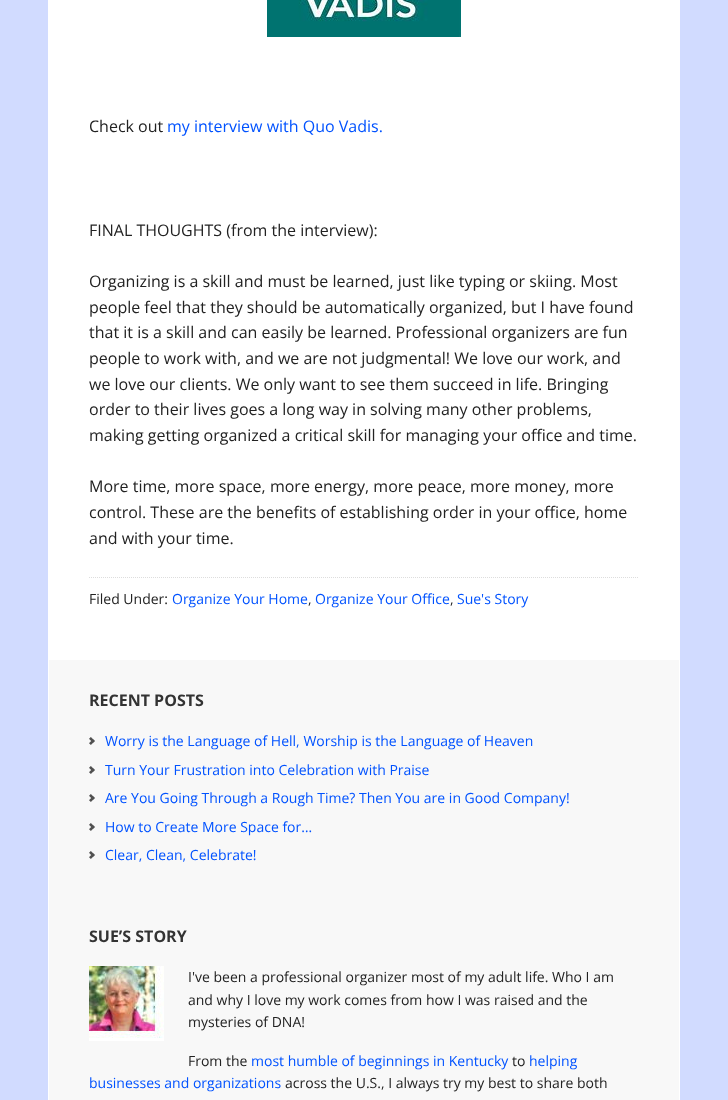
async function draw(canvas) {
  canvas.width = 728;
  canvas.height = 1100;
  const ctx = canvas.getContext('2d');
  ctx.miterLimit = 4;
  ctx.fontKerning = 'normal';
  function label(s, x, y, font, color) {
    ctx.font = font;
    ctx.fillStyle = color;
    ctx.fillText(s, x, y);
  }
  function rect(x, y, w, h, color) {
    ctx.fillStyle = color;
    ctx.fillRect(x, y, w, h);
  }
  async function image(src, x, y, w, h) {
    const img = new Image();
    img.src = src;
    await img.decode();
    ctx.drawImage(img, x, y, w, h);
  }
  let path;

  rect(0, 0, 728, 1100, '#d1dbff');
  ctx.strokeStyle = '#fff';
  ctx.strokeRect(48.5, -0.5, 631, 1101);
  rect(49, 0, 630, 660, '#fff');
  await image('assets/img1.png', 267, 0, 194, 37);
  label('Check out', 89, 132, '16px Open Sans', '#222');
  label('my interview with Quo Vadis.', 167, 132, '16px Open Sans', '#0052ff');
  label('FINAL THOUGHTS (from the interview):', 89, 236, '16px Open Sans', '#222');
  label('Organizing is a skill and must be learned, just like typing or skiing. Most', 89, 287, '16px Open Sans', '#222');
  label('people feel that they should be automatically organized, but I have found', 89, 313, '16px Open Sans', '#222');
  label('that it is a skill and can easily be learned. Professional organizers are fun', 89, 338, '16px Open Sans', '#222');
  label('people to work with, and we are not judgmental! We love our work, and', 89, 364, '16px Open Sans', '#222');
  label('we love our clients. We only want to see them succeed in life. Bringing', 89, 390, '16px Open Sans', '#222');
  label('order to their lives goes a long way in solving many other problems,', 89, 415, '16px Open Sans', '#222');
  label('making getting organized a critical skill for managing your office and time.', 89, 441, '16px Open Sans', '#222');
  label('More time, more space, more energy, more peace, more money, more', 89, 492, '16px Open Sans', '#222');
  label('control. These are the benefits of establishing order in your office, home', 89, 518, '16px Open Sans', '#222');
  label('and with your time.', 89, 544, '16px Open Sans', '#222');
  path = new Path2D('M89 577.5H639');
  ctx.strokeStyle = '#ddd';
  ctx.setLineDash([1, 1]);
  ctx.stroke(path);
  label('Filed Under:', 89, 604, '14px Open Sans', '#222');
  label('Organize Your Home', 172, 604, '14px Open Sans', '#0052ff');
  label(',', 308, 604, '14px Open Sans', '#222');
  label('Organize Your Office', 315, 604, '14px Open Sans', '#0052ff');
  label(',', 450, 604, '14px Open Sans', '#222');
  label('Sue\'s Story', 457, 604, '14px Open Sans', '#0052ff');
  rect(49, 660, 630, 440, '#f8f8f8');
  label('RECENT POSTS', 89, 706, 'bold 16px Open Sans', '#333');
  await image('assets/img2.png', 89, 737, 6, 8);
  label('Worry is the Language of Hell, Worship is the Language of Heaven', 105, 746, '14px Open Sans', '#0052ff');
  await image('assets/img2.png', 89, 766, 6, 8);
  label('Turn Your Frustration into Celebration with Praise', 105, 775, '14px Open Sans', '#0052ff');
  await image('assets/img2.png', 89, 794, 6, 8);
  label('Are You Going Through a Rough Time? Then You are in Good Company!', 105, 803, '14px Open Sans', '#0052ff');
  await image('assets/img2.png', 89, 823, 6, 8);
  label('How to Create More Space for…', 105, 832, '14px Open Sans', '#0052ff');
  await image('assets/img2.png', 89, 851, 6, 8);
  label('Clear, Clean, Celebrate!', 105, 860, '14px Open Sans', '#0052ff');
  label('SUE’S STORY', 89, 942, 'bold 16px Open Sans', '#333');
  await image('assets/img3.png', 89, 966, 75, 75);
  label('I\'ve been a professional organizer most of my adult life. Who I am', 188, 982, '14px Open Sans', '#222');
  label('and why I love my work comes from how I was raised and the', 188, 1005, '14px Open Sans', '#222');
  label('mysteries of DNA!', 188, 1027, '14px Open Sans', '#222');
  label('From the', 188, 1066, '14px Open Sans', '#222');
  label('most humble of beginnings in Kentucky', 251, 1066, '14px Open Sans', '#0052ff');
  label('to', 512, 1066, '14px Open Sans', '#222');
  label('helping', 529, 1066, '14px Open Sans', '#0052ff');
  label('businesses and organizations', 89, 1088, '14px Open Sans', '#0052ff');
  label('across the U.S., I always try my best to share both', 285, 1088, '14px Open Sans', '#222');
}

draw(document.querySelector('canvas'));
